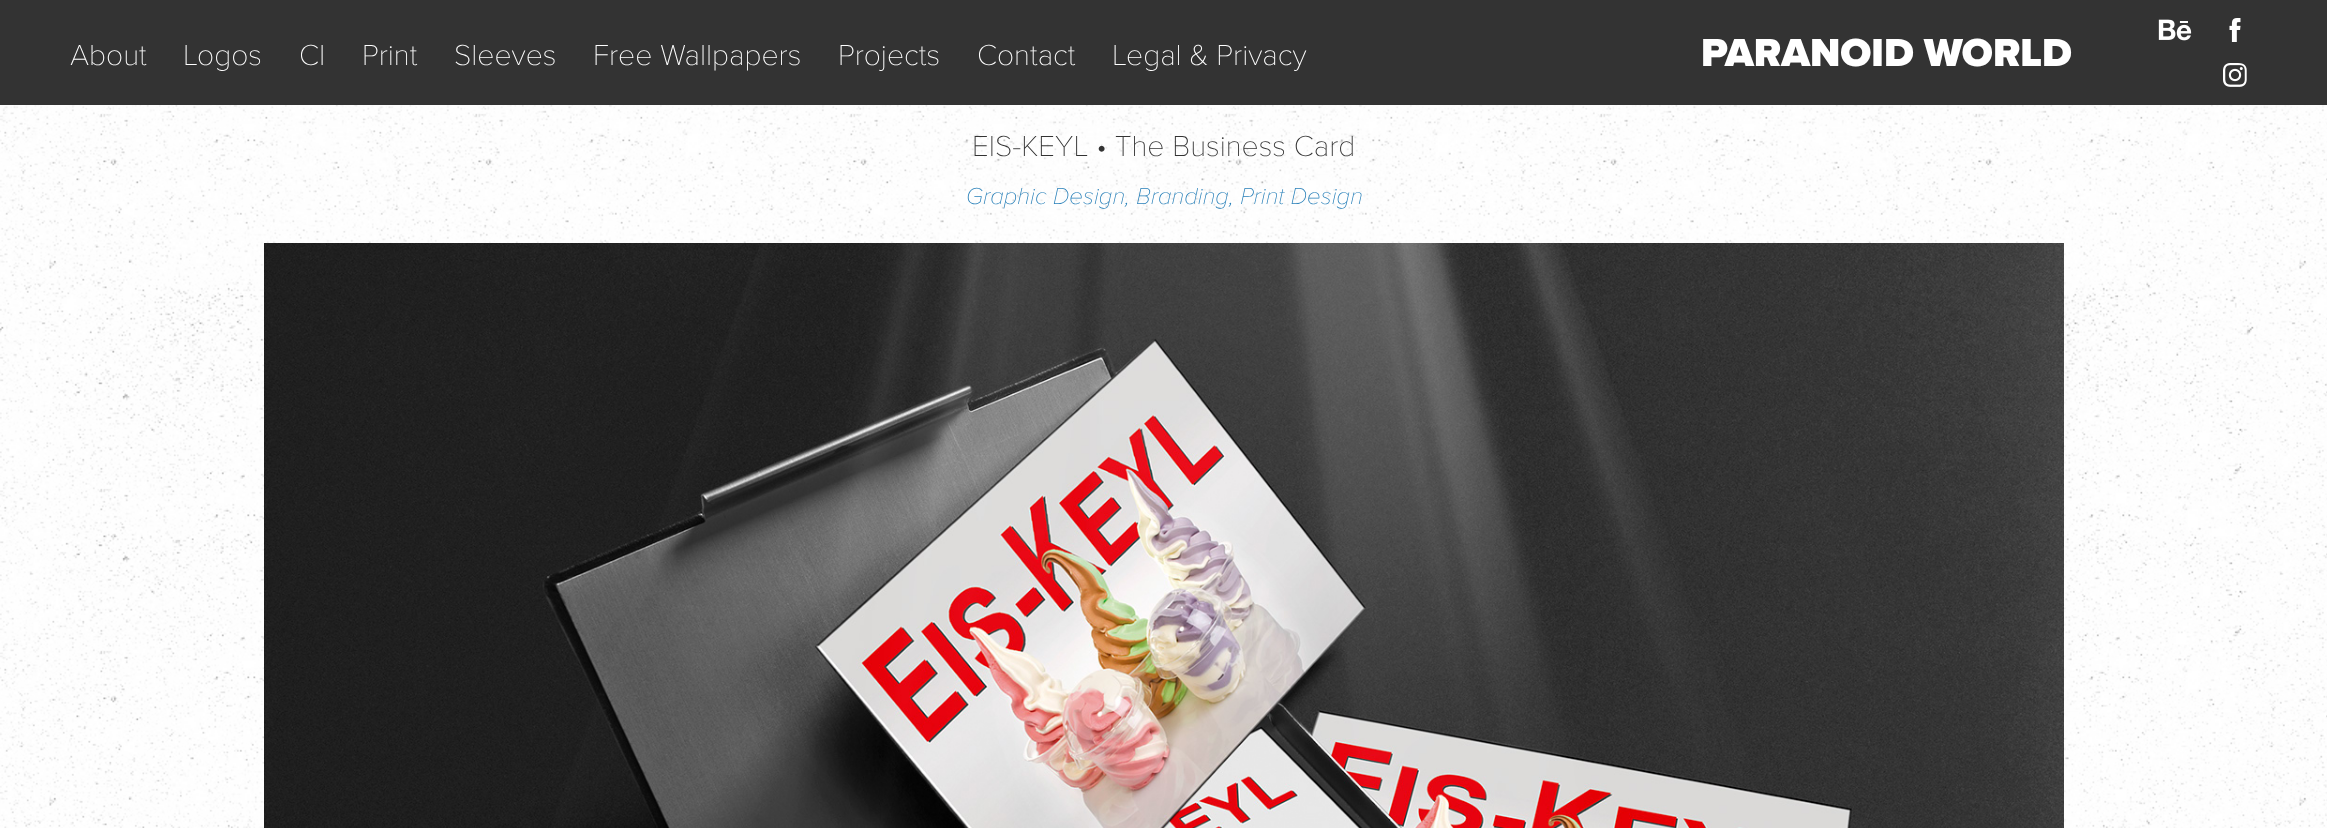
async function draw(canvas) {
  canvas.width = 2327;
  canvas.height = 828;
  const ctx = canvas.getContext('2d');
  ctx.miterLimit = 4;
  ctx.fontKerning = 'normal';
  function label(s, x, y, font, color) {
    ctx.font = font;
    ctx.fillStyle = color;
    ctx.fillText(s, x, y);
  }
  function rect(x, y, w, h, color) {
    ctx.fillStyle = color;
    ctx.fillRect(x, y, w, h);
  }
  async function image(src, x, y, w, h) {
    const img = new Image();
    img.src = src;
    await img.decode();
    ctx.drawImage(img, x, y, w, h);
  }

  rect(0, 0, 2327, 828, '#fff');
  await image('assets/img1.png', 0, 105, 2327, 723);
  rect(0, 0, 2327, 105, '#333');
  label('About', 70, 65, '100 30px Proxima Nova', '#fff');
  label('Logos', 183, 65, '100 30px Proxima Nova', '#fff');
  label('CI', 299, 65, '100 30px Proxima Nova', '#fff');
  label('Print', 362, 65, '100 30px Proxima Nova', '#fff');
  label('Sleeves', 454, 65, '100 30px Proxima Nova', '#fff');
  label('Free Wallpapers', 593, 65, '100 30px Proxima Nova', '#fff');
  label('Projects', 838, 65, '100 30px Proxima Nova', '#fff');
  label('Contact', 977, 65, '100 30px Proxima Nova', '#fff');
  label('Legal & Privacy', 1112, 65, '100 30px Proxima Nova', '#fff');
  label('PARANOID WORLD', 1701, 66, '900 40.5px Proxima Nova', '#fff');
  await image('assets/img2.png', 2158, 19, 34, 22);
  await image('assets/img3.png', 2229, 18, 12, 24);
  await image('assets/img4.png', 2223, 63, 24, 24);
  label('EIS-KEYL • The Business Card', 972, 156, '100 30px Proxima Nova', '#333');
  label('Graphic Design, Branding, Print Design', 966, 204, 'italic 100 24px Proxima Nova', '#2980b9');
  await image('assets/img5.png', 264, 243, 1800, 585);
  ctx.fillStyle = '#ffffff1a';
  ctx.beginPath();
  ctx.arc(2223, 723, 45, 0, 2 * Math.PI);
  ctx.fill();
  await image('assets/img6.png', 2215, 713, 8, 3);
}

draw(document.querySelector('canvas'));
